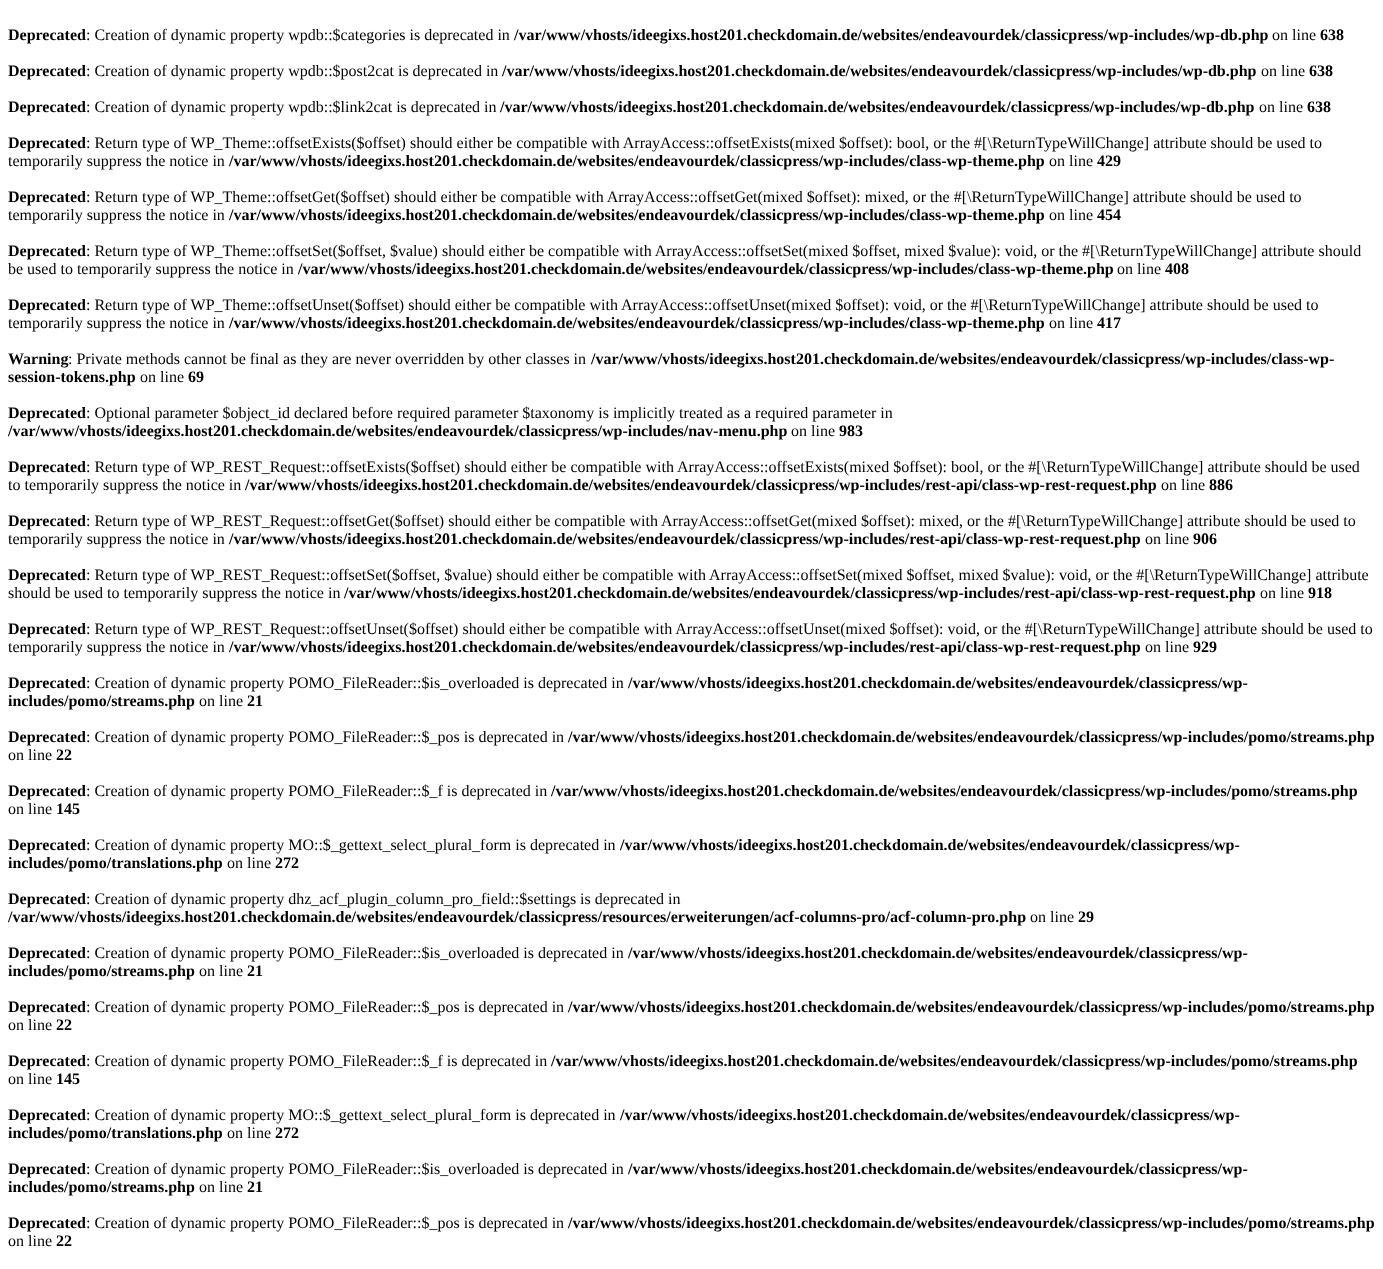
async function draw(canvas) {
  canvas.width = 1383;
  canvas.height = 1269;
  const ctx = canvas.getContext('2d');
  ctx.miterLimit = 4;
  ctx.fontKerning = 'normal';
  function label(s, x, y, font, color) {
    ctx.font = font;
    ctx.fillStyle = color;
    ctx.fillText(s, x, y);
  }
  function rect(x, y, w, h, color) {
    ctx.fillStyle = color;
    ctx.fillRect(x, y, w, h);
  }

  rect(0, 0, 1383, 1269, '#fff');
  label('Deprecated', 8, 40, 'bold 16px Liberation Serif', '#000');
  label(': Creation of dynamic property wpdb::$categories is deprecated in', 86, 40, '16px Liberation Serif', '#000');
  label('/var/www/vhosts/ideegixs.host201.checkdomain.de/websites/endeavourdek/classicpress/wp-includes/wp-db.php', 514, 40, 'bold 16px Liberation Serif', '#000');
  label('on line', 1272, 40, '16px Liberation Serif', '#000');
  label('638', 1320, 40, 'bold 16px Liberation Serif', '#000');
  label('Deprecated', 8, 76, 'bold 16px Liberation Serif', '#000');
  label(': Creation of dynamic property wpdb::$post2cat is deprecated in', 86, 76, '16px Liberation Serif', '#000');
  label('/var/www/vhosts/ideegixs.host201.checkdomain.de/websites/endeavourdek/classicpress/wp-includes/wp-db.php', 502, 76, 'bold 16px Liberation Serif', '#000');
  label('on line', 1261, 76, '16px Liberation Serif', '#000');
  label('638', 1309, 76, 'bold 16px Liberation Serif', '#000');
  label('Deprecated', 8, 112, 'bold 16px Liberation Serif', '#000');
  label(': Creation of dynamic property wpdb::$link2cat is deprecated in', 86, 112, '16px Liberation Serif', '#000');
  label('/var/www/vhosts/ideegixs.host201.checkdomain.de/websites/endeavourdek/classicpress/wp-includes/wp-db.php', 500, 112, 'bold 16px Liberation Serif', '#000');
  label('on line', 1259, 112, '16px Liberation Serif', '#000');
  label('638', 1307, 112, 'bold 16px Liberation Serif', '#000');
  label('Deprecated', 8, 148, 'bold 16px Liberation Serif', '#000');
  label(': Return type of WP_Theme::offsetExists($offset) should either be compatible with ArrayAccess::offsetExists(mixed $offset): bool, or the #[\\ReturnTypeWillChange] attribute should be used to', 86, 148, '16px Liberation Serif', '#000');
  label('temporarily suppress the notice in', 8, 166, '16px Liberation Serif', '#000');
  label('/var/www/vhosts/ideegixs.host201.checkdomain.de/websites/endeavourdek/classicpress/wp-includes/class-wp-theme.php', 229, 166, 'bold 16px Liberation Serif', '#000');
  label('on line', 1049, 166, '16px Liberation Serif', '#000');
  label('429', 1097, 166, 'bold 16px Liberation Serif', '#000');
  label('Deprecated', 8, 202, 'bold 16px Liberation Serif', '#000');
  label(': Return type of WP_Theme::offsetGet($offset) should either be compatible with ArrayAccess::offsetGet(mixed $offset): mixed, or the #[\\ReturnTypeWillChange] attribute should be used to', 86, 202, '16px Liberation Serif', '#000');
  label('temporarily suppress the notice in', 8, 220, '16px Liberation Serif', '#000');
  label('/var/www/vhosts/ideegixs.host201.checkdomain.de/websites/endeavourdek/classicpress/wp-includes/class-wp-theme.php', 229, 220, 'bold 16px Liberation Serif', '#000');
  label('on line', 1049, 220, '16px Liberation Serif', '#000');
  label('454', 1097, 220, 'bold 16px Liberation Serif', '#000');
  label('Deprecated', 8, 256, 'bold 16px Liberation Serif', '#000');
  label(': Return type of WP_Theme::offsetSet($offset, $value) should either be compatible with ArrayAccess::offsetSet(mixed $offset, mixed $value): void, or the #[\\ReturnTypeWillChange] attribute should', 86, 256, '16px Liberation Serif', '#000');
  label('be used to temporarily suppress the notice in', 8, 274, '16px Liberation Serif', '#000');
  label('/var/www/vhosts/ideegixs.host201.checkdomain.de/websites/endeavourdek/classicpress/wp-includes/class-wp-theme.php', 298, 274, 'bold 16px Liberation Serif', '#000');
  label('on line', 1117, 274, '16px Liberation Serif', '#000');
  label('408', 1165, 274, 'bold 16px Liberation Serif', '#000');
  label('Deprecated', 8, 310, 'bold 16px Liberation Serif', '#000');
  label(': Return type of WP_Theme::offsetUnset($offset) should either be compatible with ArrayAccess::offsetUnset(mixed $offset): void, or the #[\\ReturnTypeWillChange] attribute should be used to', 86, 310, '16px Liberation Serif', '#000');
  label('temporarily suppress the notice in', 8, 328, '16px Liberation Serif', '#000');
  label('/var/www/vhosts/ideegixs.host201.checkdomain.de/websites/endeavourdek/classicpress/wp-includes/class-wp-theme.php', 229, 328, 'bold 16px Liberation Serif', '#000');
  label('on line', 1049, 328, '16px Liberation Serif', '#000');
  label('417', 1097, 328, 'bold 16px Liberation Serif', '#000');
  label('Warning', 8, 364, 'bold 16px Liberation Serif', '#000');
  label(': Private methods cannot be final as they are never overridden by other classes in', 68, 364, '16px Liberation Serif', '#000');
  label('/var/www/vhosts/ideegixs.host201.checkdomain.de/websites/endeavourdek/classicpress/wp-includes/class-wp-', 591, 364, 'bold 16px Liberation Serif', '#000');
  label('session-tokens.php', 8, 382, 'bold 16px Liberation Serif', '#000');
  label('on line', 140, 382, '16px Liberation Serif', '#000');
  label('69', 188, 382, 'bold 16px Liberation Serif', '#000');
  label('Deprecated', 8, 418, 'bold 16px Liberation Serif', '#000');
  label(': Optional parameter $object_id declared before required parameter $taxonomy is implicitly treated as a required parameter in', 86, 418, '16px Liberation Serif', '#000');
  label('/var/www/vhosts/ideegixs.host201.checkdomain.de/websites/endeavourdek/classicpress/wp-includes/nav-menu.php', 8, 436, 'bold 16px Liberation Serif', '#000');
  label('on line', 791, 436, '16px Liberation Serif', '#000');
  label('983', 839, 436, 'bold 16px Liberation Serif', '#000');
  label('Deprecated', 8, 472, 'bold 16px Liberation Serif', '#000');
  label(': Return type of WP_REST_Request::offsetExists($offset) should either be compatible with ArrayAccess::offsetExists(mixed $offset): bool, or the #[\\ReturnTypeWillChange] attribute should be used', 86, 472, '16px Liberation Serif', '#000');
  label('to temporarily suppress the notice in', 8, 490, '16px Liberation Serif', '#000');
  label('/var/www/vhosts/ideegixs.host201.checkdomain.de/websites/endeavourdek/classicpress/wp-includes/rest-api/class-wp-rest-request.php', 245, 490, 'bold 16px Liberation Serif', '#000');
  label('on line', 1161, 490, '16px Liberation Serif', '#000');
  label('886', 1209, 490, 'bold 16px Liberation Serif', '#000');
  label('Deprecated', 8, 526, 'bold 16px Liberation Serif', '#000');
  label(': Return type of WP_REST_Request::offsetGet($offset) should either be compatible with ArrayAccess::offsetGet(mixed $offset): mixed, or the #[\\ReturnTypeWillChange] attribute should be used to', 86, 526, '16px Liberation Serif', '#000');
  label('temporarily suppress the notice in', 8, 544, '16px Liberation Serif', '#000');
  label('/var/www/vhosts/ideegixs.host201.checkdomain.de/websites/endeavourdek/classicpress/wp-includes/rest-api/class-wp-rest-request.php', 229, 544, 'bold 16px Liberation Serif', '#000');
  label('on line', 1145, 544, '16px Liberation Serif', '#000');
  label('906', 1193, 544, 'bold 16px Liberation Serif', '#000');
  label('Deprecated', 8, 580, 'bold 16px Liberation Serif', '#000');
  label(': Return type of WP_REST_Request::offsetSet($offset, $value) should either be compatible with ArrayAccess::offsetSet(mixed $offset, mixed $value): void, or the #[\\ReturnTypeWillChange] attribute', 86, 580, '16px Liberation Serif', '#000');
  label('should be used to temporarily suppress the notice in', 8, 598, '16px Liberation Serif', '#000');
  label('/var/www/vhosts/ideegixs.host201.checkdomain.de/websites/endeavourdek/classicpress/wp-includes/rest-api/class-wp-rest-request.php', 344, 598, 'bold 16px Liberation Serif', '#000');
  label('on line', 1260, 598, '16px Liberation Serif', '#000');
  label('918', 1308, 598, 'bold 16px Liberation Serif', '#000');
  label('Deprecated', 8, 634, 'bold 16px Liberation Serif', '#000');
  label(': Return type of WP_REST_Request::offsetUnset($offset) should either be compatible with ArrayAccess::offsetUnset(mixed $offset): void, or the #[\\ReturnTypeWillChange] attribute should be used to', 86, 634, '16px Liberation Serif', '#000');
  label('temporarily suppress the notice in', 8, 652, '16px Liberation Serif', '#000');
  label('/var/www/vhosts/ideegixs.host201.checkdomain.de/websites/endeavourdek/classicpress/wp-includes/rest-api/class-wp-rest-request.php', 229, 652, 'bold 16px Liberation Serif', '#000');
  label('on line', 1145, 652, '16px Liberation Serif', '#000');
  label('929', 1193, 652, 'bold 16px Liberation Serif', '#000');
  label('Deprecated', 8, 688, 'bold 16px Liberation Serif', '#000');
  label(': Creation of dynamic property POMO_FileReader::$is_overloaded is deprecated in', 86, 688, '16px Liberation Serif', '#000');
  label('/var/www/vhosts/ideegixs.host201.checkdomain.de/websites/endeavourdek/classicpress/wp-', 628, 688, 'bold 16px Liberation Serif', '#000');
  label('includes/pomo/streams.php', 8, 706, 'bold 16px Liberation Serif', '#000');
  label('on line', 199, 706, '16px Liberation Serif', '#000');
  label('21', 247, 706, 'bold 16px Liberation Serif', '#000');
  label('Deprecated', 8, 742, 'bold 16px Liberation Serif', '#000');
  label(': Creation of dynamic property POMO_FileReader::$_pos is deprecated in', 86, 742, '16px Liberation Serif', '#000');
  label('/var/www/vhosts/ideegixs.host201.checkdomain.de/websites/endeavourdek/classicpress/wp-includes/pomo/streams.php', 568, 742, 'bold 16px Liberation Serif', '#000');
  label('on line', 8, 760, '16px Liberation Serif', '#000');
  label('22', 56, 760, 'bold 16px Liberation Serif', '#000');
  label('Deprecated', 8, 796, 'bold 16px Liberation Serif', '#000');
  label(': Creation of dynamic property POMO_FileReader::$_f is deprecated in', 86, 796, '16px Liberation Serif', '#000');
  label('/var/www/vhosts/ideegixs.host201.checkdomain.de/websites/endeavourdek/classicpress/wp-includes/pomo/streams.php', 551, 796, 'bold 16px Liberation Serif', '#000');
  label('on line', 8, 814, '16px Liberation Serif', '#000');
  label('145', 56, 814, 'bold 16px Liberation Serif', '#000');
  label('Deprecated', 8, 850, 'bold 16px Liberation Serif', '#000');
  label(': Creation of dynamic property MO::$_gettext_select_plural_form is deprecated in', 86, 850, '16px Liberation Serif', '#000');
  label('/var/www/vhosts/ideegixs.host201.checkdomain.de/websites/endeavourdek/classicpress/wp-', 620, 850, 'bold 16px Liberation Serif', '#000');
  label('includes/pomo/translations.php', 8, 868, 'bold 16px Liberation Serif', '#000');
  label('on line', 227, 868, '16px Liberation Serif', '#000');
  label('272', 275, 868, 'bold 16px Liberation Serif', '#000');
  label('Deprecated', 8, 904, 'bold 16px Liberation Serif', '#000');
  label(': Creation of dynamic property dhz_acf_plugin_column_pro_field::$settings is deprecated in', 86, 904, '16px Liberation Serif', '#000');
  label('/var/www/vhosts/ideegixs.host201.checkdomain.de/websites/endeavourdek/classicpress/resources/erweiterungen/acf-columns-pro/acf-column-pro.php', 8, 922, 'bold 16px Liberation Serif', '#000');
  label('on line', 1030, 922, '16px Liberation Serif', '#000');
  label('29', 1078, 922, 'bold 16px Liberation Serif', '#000');
  label('Deprecated', 8, 958, 'bold 16px Liberation Serif', '#000');
  label(': Creation of dynamic property POMO_FileReader::$is_overloaded is deprecated in', 86, 958, '16px Liberation Serif', '#000');
  label('/var/www/vhosts/ideegixs.host201.checkdomain.de/websites/endeavourdek/classicpress/wp-', 628, 958, 'bold 16px Liberation Serif', '#000');
  label('includes/pomo/streams.php', 8, 976, 'bold 16px Liberation Serif', '#000');
  label('on line', 199, 976, '16px Liberation Serif', '#000');
  label('21', 247, 976, 'bold 16px Liberation Serif', '#000');
  label('Deprecated', 8, 1012, 'bold 16px Liberation Serif', '#000');
  label(': Creation of dynamic property POMO_FileReader::$_pos is deprecated in', 86, 1012, '16px Liberation Serif', '#000');
  label('/var/www/vhosts/ideegixs.host201.checkdomain.de/websites/endeavourdek/classicpress/wp-includes/pomo/streams.php', 568, 1012, 'bold 16px Liberation Serif', '#000');
  label('on line', 8, 1030, '16px Liberation Serif', '#000');
  label('22', 56, 1030, 'bold 16px Liberation Serif', '#000');
  label('Deprecated', 8, 1066, 'bold 16px Liberation Serif', '#000');
  label(': Creation of dynamic property POMO_FileReader::$_f is deprecated in', 86, 1066, '16px Liberation Serif', '#000');
  label('/var/www/vhosts/ideegixs.host201.checkdomain.de/websites/endeavourdek/classicpress/wp-includes/pomo/streams.php', 551, 1066, 'bold 16px Liberation Serif', '#000');
  label('on line', 8, 1084, '16px Liberation Serif', '#000');
  label('145', 56, 1084, 'bold 16px Liberation Serif', '#000');
  label('Deprecated', 8, 1120, 'bold 16px Liberation Serif', '#000');
  label(': Creation of dynamic property MO::$_gettext_select_plural_form is deprecated in', 86, 1120, '16px Liberation Serif', '#000');
  label('/var/www/vhosts/ideegixs.host201.checkdomain.de/websites/endeavourdek/classicpress/wp-', 620, 1120, 'bold 16px Liberation Serif', '#000');
  label('includes/pomo/translations.php', 8, 1138, 'bold 16px Liberation Serif', '#000');
  label('on line', 227, 1138, '16px Liberation Serif', '#000');
  label('272', 275, 1138, 'bold 16px Liberation Serif', '#000');
  label('Deprecated', 8, 1174, 'bold 16px Liberation Serif', '#000');
  label(': Creation of dynamic property POMO_FileReader::$is_overloaded is deprecated in', 86, 1174, '16px Liberation Serif', '#000');
  label('/var/www/vhosts/ideegixs.host201.checkdomain.de/websites/endeavourdek/classicpress/wp-', 628, 1174, 'bold 16px Liberation Serif', '#000');
  label('includes/pomo/streams.php', 8, 1192, 'bold 16px Liberation Serif', '#000');
  label('on line', 199, 1192, '16px Liberation Serif', '#000');
  label('21', 247, 1192, 'bold 16px Liberation Serif', '#000');
  label('Deprecated', 8, 1228, 'bold 16px Liberation Serif', '#000');
  label(': Creation of dynamic property POMO_FileReader::$_pos is deprecated in', 86, 1228, '16px Liberation Serif', '#000');
  label('/var/www/vhosts/ideegixs.host201.checkdomain.de/websites/endeavourdek/classicpress/wp-includes/pomo/streams.php', 568, 1228, 'bold 16px Liberation Serif', '#000');
  label('on line', 8, 1246, '16px Liberation Serif', '#000');
  label('22', 56, 1246, 'bold 16px Liberation Serif', '#000');
}

draw(document.querySelector('canvas'));
